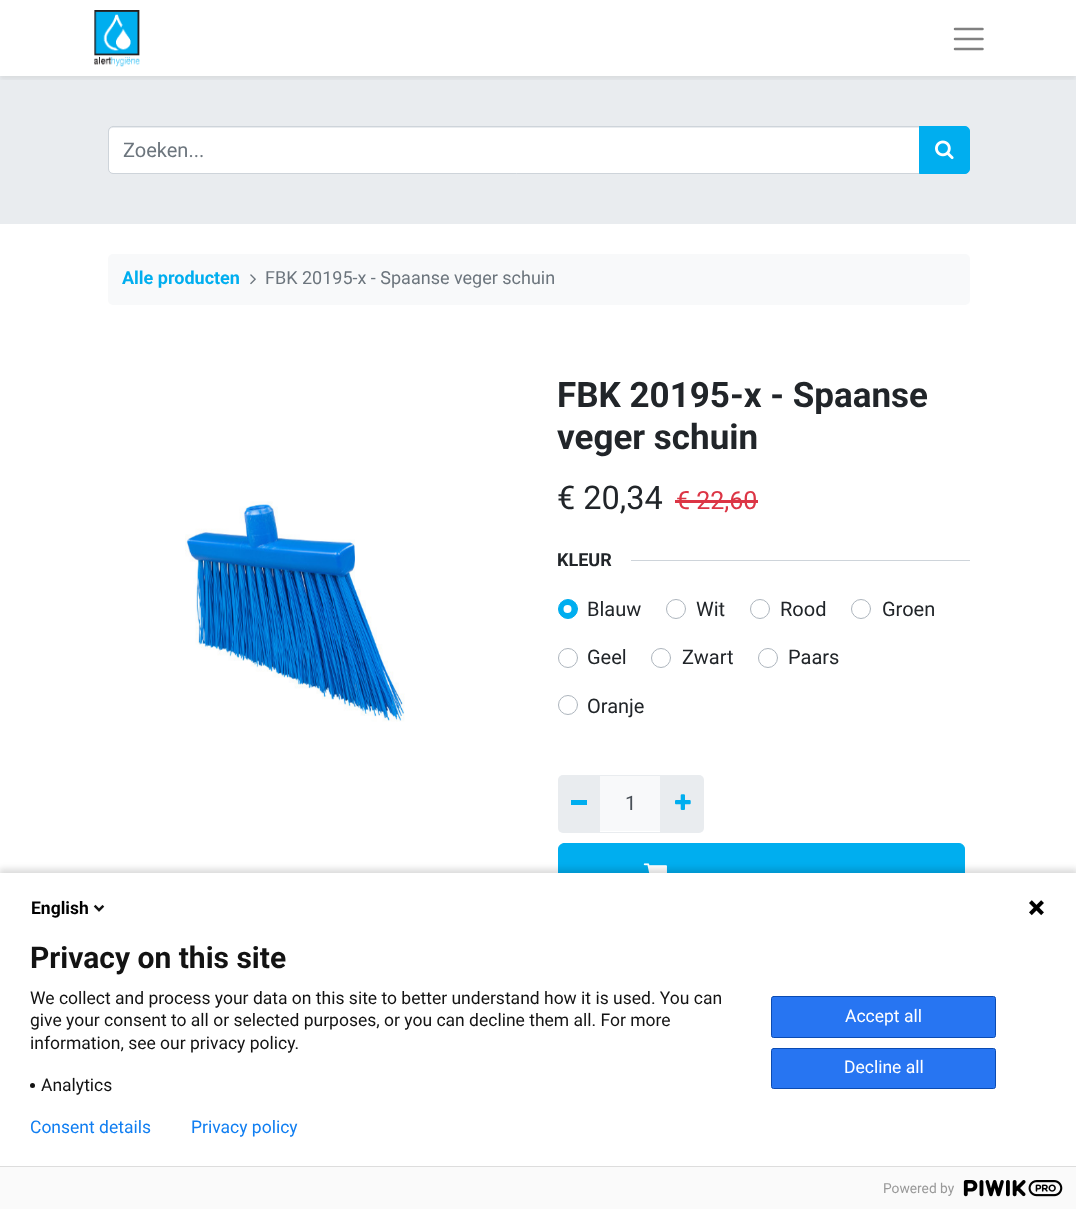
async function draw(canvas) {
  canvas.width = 1076;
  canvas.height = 1209;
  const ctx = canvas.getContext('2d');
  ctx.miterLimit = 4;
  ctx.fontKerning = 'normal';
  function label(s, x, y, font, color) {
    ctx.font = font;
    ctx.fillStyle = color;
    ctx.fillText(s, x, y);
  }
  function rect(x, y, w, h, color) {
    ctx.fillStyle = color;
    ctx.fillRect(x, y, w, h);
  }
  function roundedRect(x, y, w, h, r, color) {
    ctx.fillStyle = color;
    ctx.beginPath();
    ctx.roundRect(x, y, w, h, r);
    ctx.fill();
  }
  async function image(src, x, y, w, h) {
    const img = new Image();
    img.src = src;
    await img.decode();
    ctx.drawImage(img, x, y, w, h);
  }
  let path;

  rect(0, 0, 1076, 1209, '#fff');
  rect(0, 76, 1076, 148, '#e9ecef');
  ctx.save();
  ctx.beginPath();
  ctx.rect(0, 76, 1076, 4);
  ctx.clip();
  ctx.fillStyle = '#00000012';
  ctx.filter = 'blur(2.5px)';
  ctx.beginPath();
  ctx.rect(0, 3, 1076, 76);
  ctx.fill();
  ctx.filter = 'none';
  ctx.restore();
  await image('assets/img1.png', 94, 10, 46, 57);
  path = new Path2D('M955 29H982.5M955 39H982.5M955 49H982.5');
  ctx.strokeStyle = '#808080';
  ctx.lineWidth = 2.5;
  ctx.lineCap = 'round';
  ctx.stroke(path);
  ctx.fillStyle = '#fff';
  ctx.beginPath();
  ctx.roundRect(109, 128, 810, 45, [4, 0, 0, 4]);
  ctx.fill();
  ctx.beginPath();
  ctx.roundRect(108.5, 126.5, 811, 47, [4.5, 0, 0, 4.5]);
  ctx.strokeStyle = '#ced4da';
  ctx.lineWidth = 1;
  ctx.stroke();
  label('Zoeken...', 123, 157, '20px Roboto', '#6c757d');
  ctx.fillStyle = '#00aeef';
  ctx.beginPath();
  ctx.roundRect(919.5, 126.5, 50, 47, [0, 4.5, 4.5, 0]);
  ctx.fill();
  ctx.strokeStyle = '#00aeef';
  ctx.stroke();
  await image('assets/img2.png', 935, 140, 19, 20);
  roundedRect(108, 254, 862, 51, 5, '#f8f9fa');
  label('Alle producten', 122, 284, 'bold 18px Roboto', '#00aeef');
  await image('assets/img3.png', 250, 274, 6, 11);
  label('FBK 20195-x - Spaanse veger schuin', 265, 284, '18px Roboto', '#6c757d');
  await image('assets/img4.png', 185, 501, 220, 221);
  label('FBK 20195-x - Spaanse', 557, 407, 'bold 35px Roboto', '#212529');
  label('veger schuin', 557, 449, 'bold 35px Roboto', '#212529');
  label('€ 20,34', 557, 509, '32.5px Roboto', '#212529');
  label('€ 22,60', 676, 509, '25px Roboto', '#dc3545');
  rect(675, 500, 83, 3, '#dc3545');
  label('KLEUR', 557, 566, 'bold 18px Roboto', '#212529');
  rect(631, 560, 339, 1, '#ced4da');
  ctx.fillStyle = '#00aeef';
  ctx.beginPath();
  ctx.arc(568, 609, 9.5, 0, 2 * Math.PI);
  ctx.fill();
  ctx.stroke();
  label('Blauw', 587, 616, '20px Roboto', '#212529');
  ctx.fillStyle = '#fff';
  ctx.beginPath();
  ctx.arc(567.5, 609, 4, 0, 2 * Math.PI);
  ctx.fill();
  ctx.beginPath();
  ctx.arc(676, 609, 9.5, 0, 2 * Math.PI);
  ctx.strokeStyle = '#adb5bd';
  ctx.stroke();
  label('Wit', 696, 616, '20px Roboto', '#212529');
  ctx.beginPath();
  ctx.arc(760, 609, 9.5, 0, 2 * Math.PI);
  ctx.stroke();
  label('Rood', 780, 616, '20px Roboto', '#212529');
  ctx.beginPath();
  ctx.arc(861, 609, 9.5, 0, 2 * Math.PI);
  ctx.stroke();
  label('Groen', 882, 616, '20px Roboto', '#212529');
  ctx.beginPath();
  ctx.arc(568, 658, 9.5, 0, 2 * Math.PI);
  ctx.stroke();
  label('Geel', 587, 664, '20px Roboto', '#212529');
  ctx.beginPath();
  ctx.arc(661, 658, 9.5, 0, 2 * Math.PI);
  ctx.stroke();
  label('Zwart', 682, 664, '20px Roboto', '#212529');
  ctx.beginPath();
  ctx.arc(768, 658, 9.5, 0, 2 * Math.PI);
  ctx.stroke();
  label('Paars', 788, 664, '20px Roboto', '#212529');
  ctx.beginPath();
  ctx.arc(568, 705, 9.5, 0, 2 * Math.PI);
  ctx.stroke();
  label('Oranje', 587, 713, '20px Roboto', '#212529');
  rect(600, 776, 60, 55, '#f8f9fa');
  ctx.strokeStyle = '#e9ecef';
  ctx.strokeRect(599.5, 775.5, 61, 57);
  ctx.fillStyle = '#e9ecef';
  ctx.beginPath();
  ctx.roundRect(558, 775, 42, 58, [5, 0, 0, 5]);
  ctx.fill();
  rect(571, 800, 16, 5, '#00aeef');
  label('1', 625, 810, '20px Roboto', '#495057');
  ctx.fillStyle = '#e9ecef';
  ctx.beginPath();
  ctx.roundRect(660, 775, 44, 58, [0, 5, 5, 0]);
  ctx.fill();
  await image('assets/img5.png', 675, 794, 16, 16);
  ctx.fillStyle = '#00aeef';
  ctx.beginPath();
  ctx.roundRect(558.5, 843.5, 406, 96, 5.5);
  ctx.fill();
  ctx.strokeStyle = '#00aeef';
  ctx.stroke();
  await image('assets/img6.png', 643, 863, 24, 10);
  ctx.fillStyle = '#00000024';
  ctx.filter = 'blur(3px)';
  ctx.beginPath();
  ctx.rect(-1, 869, 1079, 340);
  ctx.fill();
  ctx.filter = 'none';
  rect(0, 873, 1076, 293, '#fff');
  label('English', 31, 914, 'bold 17.5px Roboto', '#000');
  await image('assets/img7.png', 93, 904, 12, 8);
  await image('assets/img8.png', 1029, 900, 15, 16);
  label('Privacy on this site', 30, 968, 'bold 30px Roboto', '#131313');
  label('We collect and process your data on this site to better understand how it is used. You can', 30, 1004, '17.5px Roboto', '#131313');
  label('give your consent to all or selected purposes, or you can decline them all. For more', 30, 1026, '17.5px Roboto', '#131313');
  label('information, see our privacy policy.', 30, 1049, '17.5px Roboto', '#131313');
  ctx.beginPath();
  ctx.arc(32.5, 1085.5, 2.5, 0, 2 * Math.PI);
  ctx.fill();
  label('Analytics', 41, 1091, '17.5px Roboto', '#131313');
  ctx.fillStyle = '#2775f2';
  ctx.beginPath();
  ctx.roundRect(771.5, 996.5, 224, 41, 2);
  ctx.fill();
  ctx.strokeStyle = '#0b4bb3';
  ctx.stroke();
  label('Accept all', 845, 1022, '17.5px Roboto', '#fff');
  ctx.fillStyle = '#2775f2';
  ctx.beginPath();
  ctx.roundRect(771.5, 1048.5, 224, 40, 2);
  ctx.fill();
  ctx.stroke();
  label('Decline all', 844, 1073, '17.5px Roboto', '#fff');
  label('Consent details', 30, 1133, '17.5px Roboto', '#107ef1');
  label('Privacy policy', 191, 1133, '17.5px Roboto', '#107ef1');
  rect(0, 1167, 1076, 42, '#fafafa');
  rect(0, 1166, 1076, 1, '#ddd');
  label('Powered by', 883, 1193, '13.75px Roboto', '#999');
  await image('assets/img9.png', 963, 1180, 100, 17);
}

draw(document.querySelector('canvas'));
